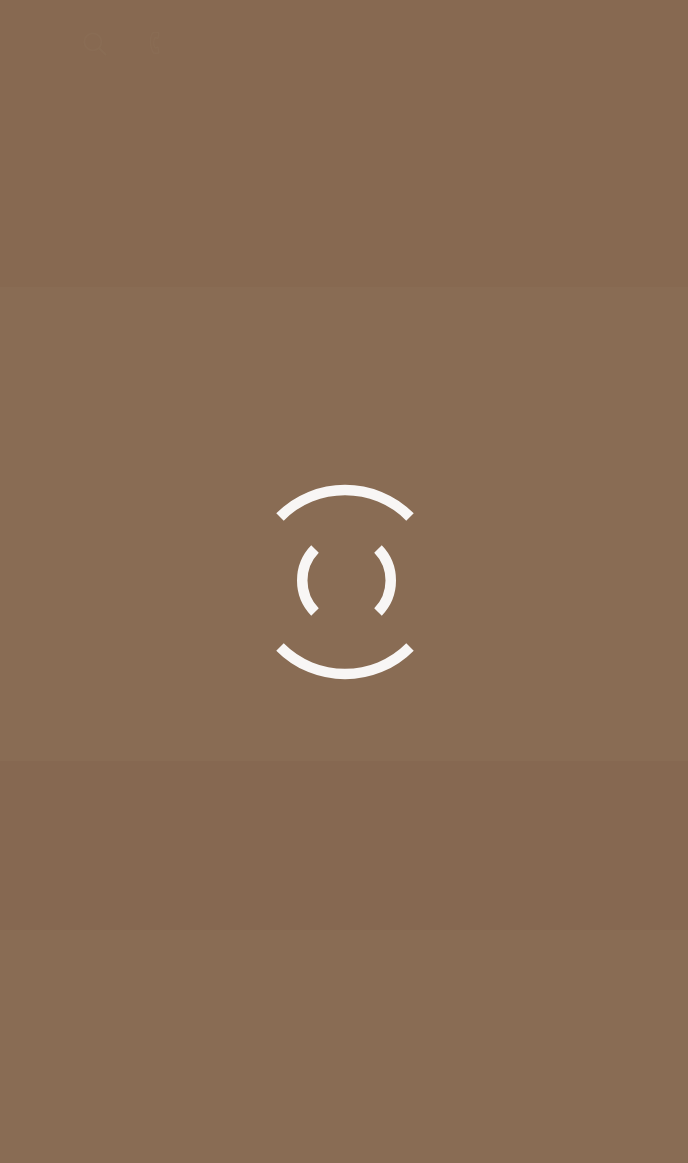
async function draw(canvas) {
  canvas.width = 688;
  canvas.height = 1163;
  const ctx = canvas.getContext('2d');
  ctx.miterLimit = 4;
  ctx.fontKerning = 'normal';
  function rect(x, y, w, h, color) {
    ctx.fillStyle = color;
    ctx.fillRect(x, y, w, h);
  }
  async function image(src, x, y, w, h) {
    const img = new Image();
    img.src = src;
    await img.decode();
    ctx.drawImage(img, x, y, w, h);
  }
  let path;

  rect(0, 0, 688, 1163, '#896c54');
  rect(0, 0, 688, 287, '#876951');
  await image('assets/img1.png', 83, 32, 24, 24);
  await image('assets/img2.png', 149, 32, 11, 22);
  rect(0, 761, 688, 169, '#866851');
  path = new Path2D('M280 517C315.5 481 374.5 481 410 517');
  ctx.strokeStyle = '#f8f6f5';
  ctx.lineWidth = 10.5;
  ctx.stroke(path);
  path = new Path2D('M410 647C374.5 683 315.5 683 280 647');
  ctx.stroke(path);
  path = new Path2D('M378 549C395 566.5 395 594.5 378 612');
  ctx.strokeStyle = '#fffffff0';
  ctx.stroke(path);
  path = new Path2D('M315 612C298 594.5 298 566.5 315 549');
  ctx.stroke(path);
}

draw(document.querySelector('canvas'));
